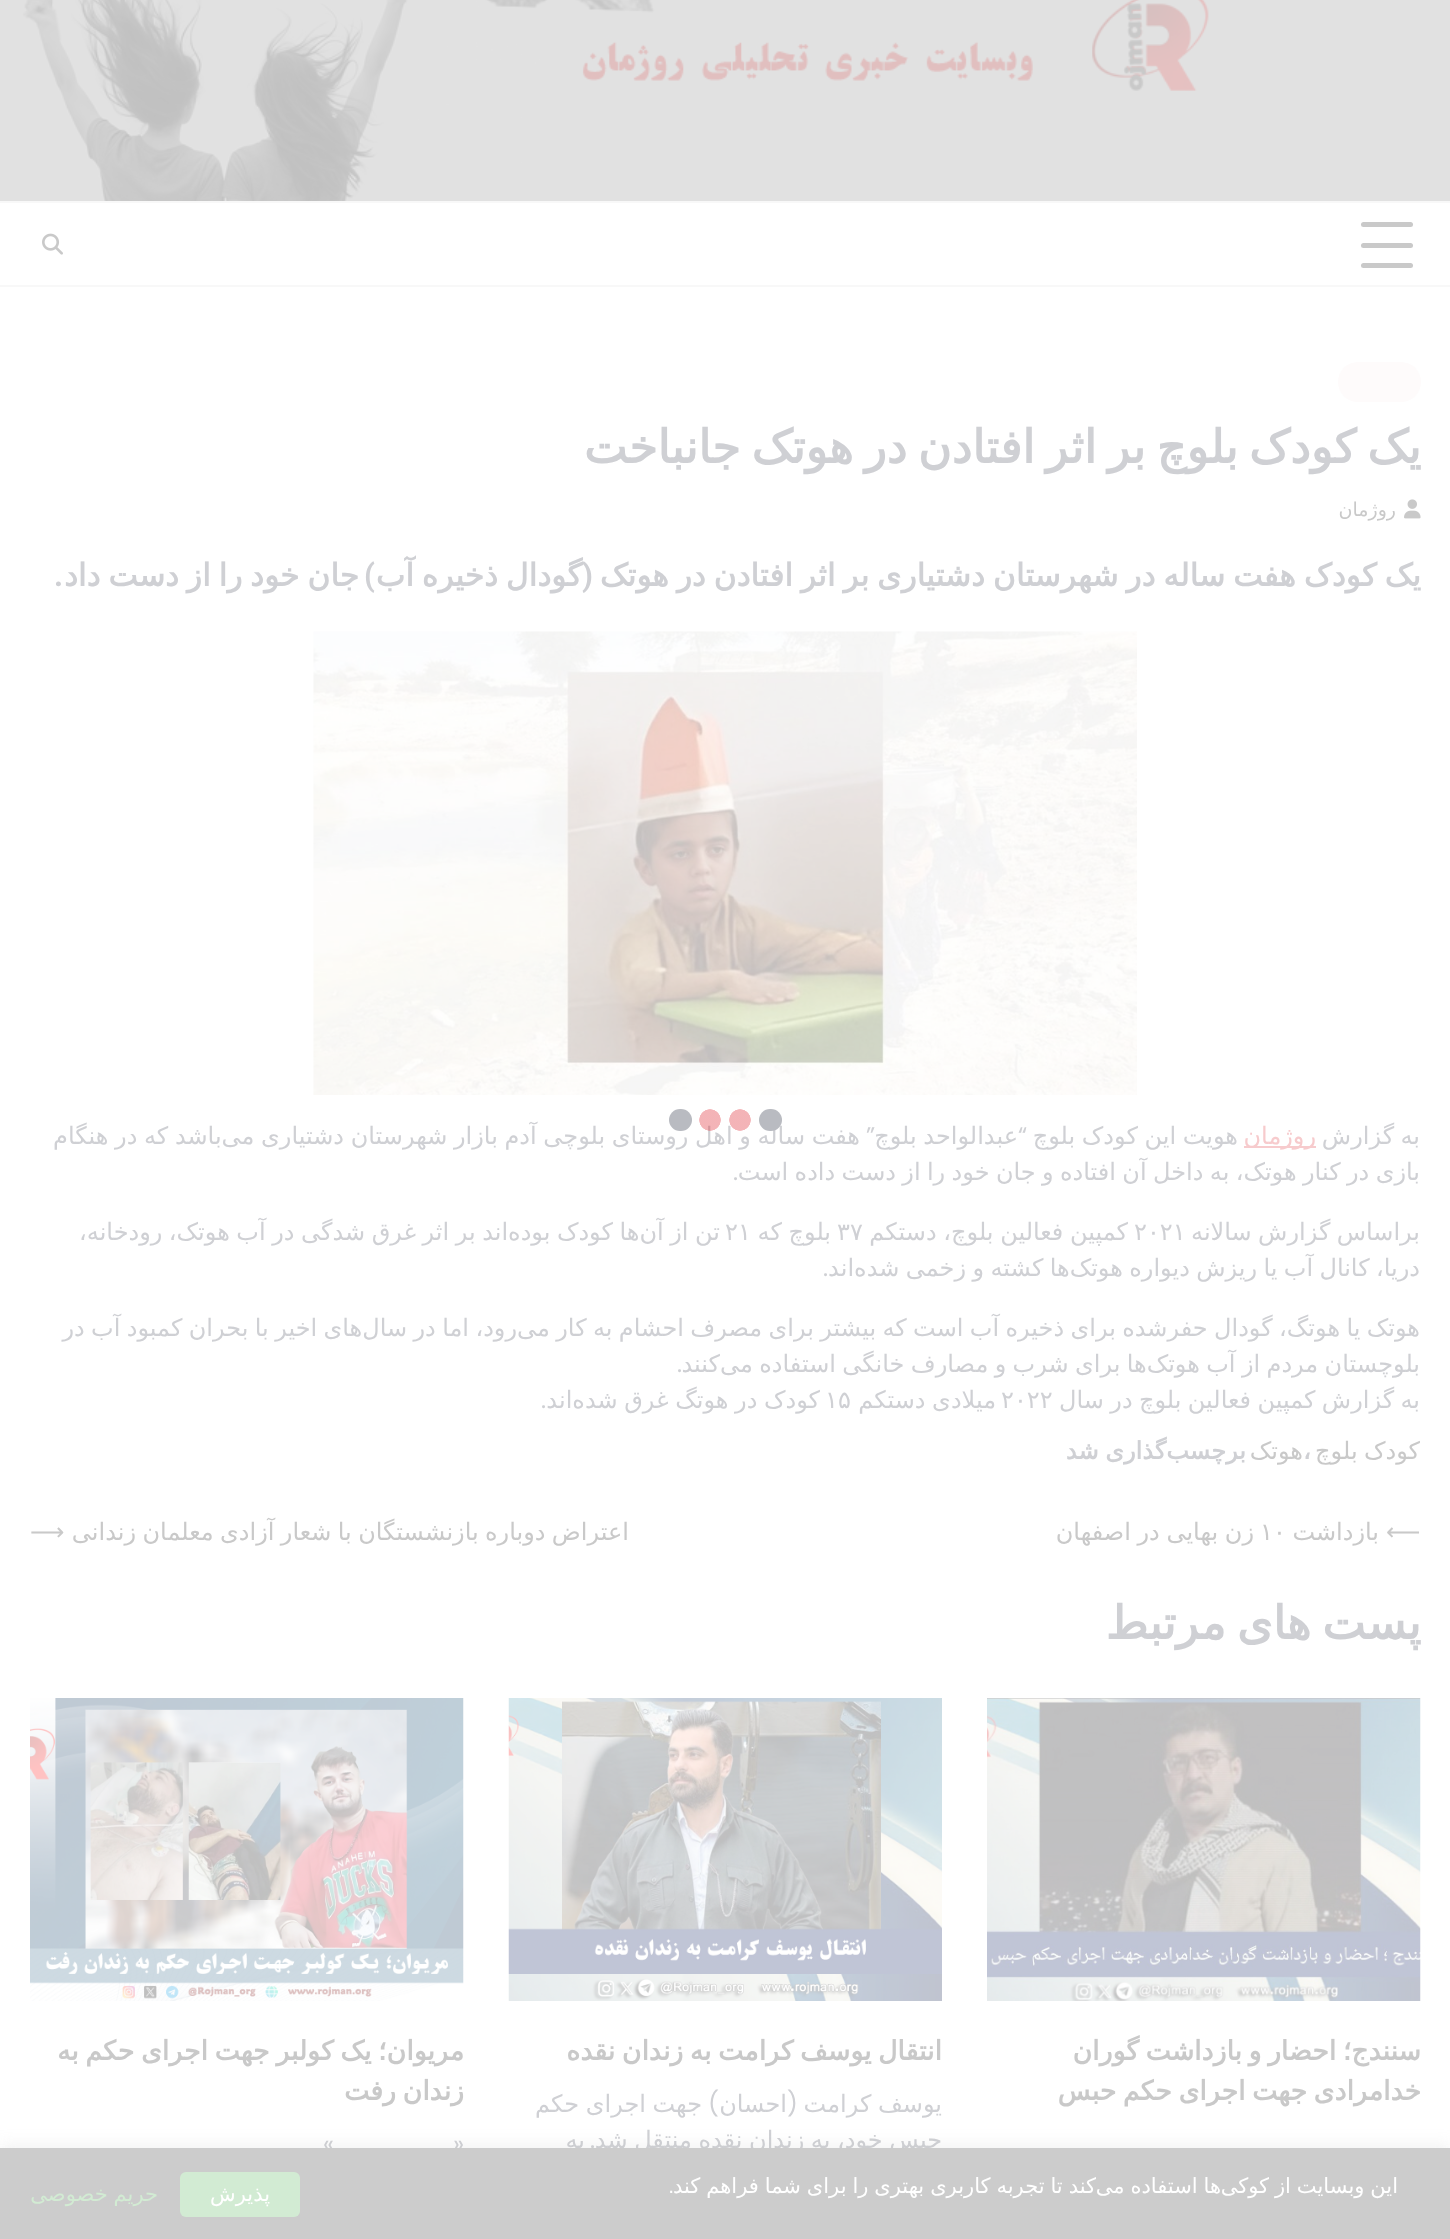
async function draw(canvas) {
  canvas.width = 1450;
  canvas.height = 2239;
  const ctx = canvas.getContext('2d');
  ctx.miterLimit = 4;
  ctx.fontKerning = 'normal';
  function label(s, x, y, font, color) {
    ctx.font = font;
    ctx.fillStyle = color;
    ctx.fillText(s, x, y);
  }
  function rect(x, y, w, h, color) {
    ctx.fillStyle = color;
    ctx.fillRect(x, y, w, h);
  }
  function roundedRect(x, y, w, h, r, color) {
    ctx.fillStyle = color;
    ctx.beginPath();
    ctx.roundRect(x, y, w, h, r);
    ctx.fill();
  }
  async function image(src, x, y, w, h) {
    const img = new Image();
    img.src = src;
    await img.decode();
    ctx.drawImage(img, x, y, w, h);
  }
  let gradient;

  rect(0, 0, 1450, 2239, '#fff');
  await image('assets/img1.png', 0, 0, 1450, 201);
  rect(0, 201, 1450, 2, '#f8f8f8');
  rect(0, 285, 1450, 2, '#f8f8f8');
  roundedRect(1361, 222, 52, 5, 2.5, '#c9c9c9');
  roundedRect(1361, 243, 52, 5, 2.5, '#c9c9c9');
  roundedRect(1361, 263, 52, 5, 2.5, '#c9c9c9');
  await image('assets/img2.png', 42, 233, 21, 22);
  roundedRect(1338, 362, 83, 40, 20, '#fefbfb');
  ctx.wordSpacing = '-3.75px';
  ctx.direction = 'rtl';
  label('یک کودک بلوچ بر اثر افتادن در هوتک جانباخت', 1421, 463, 'bold 46px DejaVu Sans', '#cfd0d4');
  await image('assets/img3.png', 1404, 499, 17, 20);
  ctx.wordSpacing = '0px';
  label('روژمان', 1396, 516, '19px DejaVu Sans', '#c9c9c9');
  ctx.wordSpacing = '-2px';
  label('یک کودک هفت ساله در شهرستان دشتیاری بر اثر افتادن در هوتک', 1421, 586, 'bold 31.2px DejaVu Sans', '#cfd0d4');
  label('گودال ذخیرە آب', 582, 586, 'bold 31.2px DejaVu Sans', '#cfd0d4');
  ctx.wordSpacing = '0px';
  label('(', 593, 586, 'bold 31.2px Roboto', '#cfd0d4');
  ctx.wordSpacing = '-2px';
  label('جان خود را از دست داد', 359, 586, 'bold 31.2px DejaVu Sans', '#cfd0d4');
  ctx.wordSpacing = '0px';
  label(')', 375, 586, 'bold 31.2px Roboto', '#cfd0d4');
  label('.', 63, 586, 'bold 31.2px Roboto', '#cfd0d4');
  await image('assets/img4.png', 313, 631, 824, 464);
  ctx.wordSpacing = '-1.25px';
  label('به گزارش', 1420, 1144, '24px DejaVu Sans', '#cfd0d4');
  rect(1244, 1146, 72, 2, '#f7cbcd');
  ctx.wordSpacing = '0px';
  label('روژمان', 1316, 1144, '24px DejaVu Sans', '#f7cbcd');
  ctx.wordSpacing = '-1px';
  label('هویت این کودک بلوچ', 1238, 1144, '24px DejaVu Sans', '#cfd0d4');
  label('عبدالواحد بلوچ', 1018, 1144, '24px DejaVu Sans', '#cfd0d4');
  label('هفت ساله و اهل روستای بلوچی آدم بازار شهرستان دشتیاری می‌باشد که در هنگام', 860, 1144, '24px DejaVu Sans', '#cfd0d4');
  ctx.wordSpacing = '0px';
  label('“', 1027, 1144, '24px Poppins', '#cfd0d4');
  label('”', 875, 1144, '24px Poppins', '#cfd0d4');
  ctx.wordSpacing = '-1.25px';
  label('بازی در کنار هوتک، به داخل آن افتادە و جان خود را از دست داده است', 1420, 1180, '24px DejaVu Sans', '#cfd0d4');
  ctx.wordSpacing = '0px';
  label('.', 738, 1180, '24px Poppins', '#cfd0d4');
  ctx.wordSpacing = '-1.25px';
  label('براساس گزارش سالانه', 1420, 1240, '24px DejaVu Sans', '#cfd0d4');
  ctx.wordSpacing = '0px';
  ctx.direction = 'ltr';
  label('۲۰۲۱', 1134, 1240, '24px DejaVu Sans', '#cfd0d4');
  ctx.wordSpacing = '-1px';
  ctx.direction = 'rtl';
  label('کمپین فعالین بلوچ، دستکم', 1128, 1240, '24px DejaVu Sans', '#cfd0d4');
  ctx.wordSpacing = '0px';
  ctx.direction = 'ltr';
  label('۳۷', 837, 1240, '24px DejaVu Sans', '#cfd0d4');
  ctx.wordSpacing = '-1px';
  ctx.direction = 'rtl';
  label('بلوچ که', 831, 1240, '24px DejaVu Sans', '#cfd0d4');
  ctx.wordSpacing = '-1.1px';
  label('تن از آن‌ها کودک بوده‌اند بر اثر غرق شدگی در آب هوتک، رودخانه،', 720, 1240, '24px DejaVu Sans', '#cfd0d4');
  ctx.wordSpacing = '0px';
  ctx.direction = 'ltr';
  label('۲۱', 725, 1240, '24px DejaVu Sans', '#cfd0d4');
  ctx.wordSpacing = '-1.25px';
  ctx.direction = 'rtl';
  label('دریا، کانال آب یا ریزش دیواره هوتک‌ها کشته و زخمی شده‌اند', 1420, 1276, '24px DejaVu Sans', '#cfd0d4');
  ctx.wordSpacing = '0px';
  label('.', 828, 1276, '24px Poppins', '#cfd0d4');
  ctx.wordSpacing = '-1.25px';
  label('هوتک یا هوتگ، گودال حفرشده برای ذخیره آب است که بیشتر برای مصرف احشام به کار می‌رود، اما در سال‌های اخیر با بحران کمبود آب در', 1420, 1336, '24px DejaVu Sans', '#cfd0d4');
  label('بلوچستان مردم از آب هوتک‌ها برای شرب و مصارف خانگی استفاده می‌کنند', 1420, 1372, '24px DejaVu Sans', '#cfd0d4');
  ctx.wordSpacing = '0px';
  label('.', 682, 1372, '24px Poppins', '#cfd0d4');
  ctx.wordSpacing = '-1.25px';
  label('به گزارش کمپین فعالین بلوچ در سال', 1420, 1408, '24px DejaVu Sans', '#cfd0d4');
  ctx.wordSpacing = '0px';
  ctx.direction = 'ltr';
  label('۲۰۲۲', 1001, 1408, '24px DejaVu Sans', '#cfd0d4');
  ctx.wordSpacing = '-1px';
  ctx.direction = 'rtl';
  label('میلادی دستکم', 996, 1408, '24px DejaVu Sans', '#cfd0d4');
  ctx.wordSpacing = '0px';
  ctx.direction = 'ltr';
  label('١۵', 825, 1408, '24px DejaVu Sans', '#cfd0d4');
  ctx.wordSpacing = '-1px';
  ctx.direction = 'rtl';
  label('کودک در هوتگ‌ غرق شده‌اند', 820, 1408, '24px DejaVu Sans', '#cfd0d4');
  ctx.wordSpacing = '0px';
  label('.', 546, 1408, '24px Poppins', '#cfd0d4');
  ctx.wordSpacing = '-1.25px';
  label('کودک بلوچ', 1420, 1459, '24px DejaVu Sans', '#c9c9c9');
  ctx.wordSpacing = '0px';
  ctx.direction = 'ltr';
  label('،', 1303, 1459, 'bold 24px DejaVu Sans', '#cfd0d4');
  ctx.direction = 'rtl';
  label('هوتک', 1303, 1459, '24px DejaVu Sans', '#c9c9c9');
  ctx.wordSpacing = '-1px';
  label('برچسب‌گذاری شد', 1246, 1459, 'bold 24px DejaVu Sans', '#cfd0d4');
  ctx.wordSpacing = '0px';
  ctx.direction = 'ltr';
  label('⟵', 1386, 1540, '24px DejaVu Sans', '#c9c9c9');
  ctx.direction = 'rtl';
  label('بازداشت', 1379, 1540, '24px DejaVu Sans', '#c9c9c9');
  ctx.direction = 'ltr';
  label('١٠', 1260, 1540, '24px DejaVu Sans', '#c9c9c9');
  ctx.wordSpacing = '-1px';
  ctx.direction = 'rtl';
  label('زن بهایی در اصفهان', 1254, 1540, '24px DejaVu Sans', '#c9c9c9');
  ctx.wordSpacing = '-1.25px';
  label('اعتراض دوباره بازنشستگان با شعار آزادی معلمان زندانی', 629, 1540, '24px DejaVu Sans', '#c9c9c9');
  ctx.wordSpacing = '0px';
  ctx.direction = 'ltr';
  label('⟶', 30, 1540, '24px DejaVu Sans', '#c9c9c9');
  ctx.wordSpacing = '-3.75px';
  ctx.direction = 'rtl';
  label('پست های مرتبط', 1421, 1639, 'bold 46px DejaVu Sans', '#cfd0d4');
  await image('assets/img5.png', 987, 1698, 434, 303);
  ctx.wordSpacing = '-2px';
  label('سنندج؛ احضار و بازداشت گوران', 1421, 2060, 'bold 26.75px DejaVu Sans', '#c9c9c9');
  label('خدامرادی جهت اجرای حکم حبس', 1421, 2100, 'bold 26.75px DejaVu Sans', '#c9c9c9');
  await image('assets/img6.png', 508, 1698, 434, 303);
  label('انتقال یوسف کرامت به زندان نقده', 942, 2060, 'bold 26.75px DejaVu Sans', '#c9c9c9');
  ctx.wordSpacing = '-1px';
  label('یوسف کرامت', 942, 2112, '24px DejaVu Sans', '#cfd0d4');
  ctx.wordSpacing = '0px';
  label('(', 798, 2112, '24px Poppins', '#cfd0d4');
  label('احسان', 787, 2112, '24px DejaVu Sans', '#cfd0d4');
  label(')', 719, 2112, '24px Poppins', '#cfd0d4');
  ctx.wordSpacing = '-1px';
  label('جهت اجرای حکم', 702, 2112, '24px DejaVu Sans', '#cfd0d4');
  label('حبس خود، به زندان نقده منتقل شد', 942, 2148, '24px DejaVu Sans', '#cfd0d4');
  ctx.wordSpacing = '0px';
  label('.', 595, 2148, '24px Poppins', '#cfd0d4');
  label('به', 585, 2148, '24px DejaVu Sans', '#cfd0d4');
  await image('assets/img7.png', 30, 1698, 434, 303);
  ctx.wordSpacing = '-2px';
  label('مریوان؛ یک کولبر جهت اجرای حکم به', 464, 2060, 'bold 26.75px DejaVu Sans', '#c9c9c9');
  label('زندان رفت', 464, 2100, 'bold 26.75px DejaVu Sans', '#c9c9c9');
  ctx.wordSpacing = '0px';
  label('«', 464, 2152, '24px Poppins', '#cfd0d4');
  label('»', 334, 2152, '24px Poppins', '#cfd0d4');
  gradient = ctx.createRadialGradient(740, 1120, 0, 740, 1120, 11);
  gradient.addColorStop(0.95, '#df2e385c');
  gradient.addColorStop(1, '#df2e3800');
  ctx.fillStyle = gradient;
  ctx.fillRect(729, 1109, 22, 22);
  gradient = ctx.createRadialGradient(710, 1120, 0, 710, 1120, 11);
  gradient.addColorStop(0.95, '#df2e385c');
  gradient.addColorStop(1, '#df2e3800');
  ctx.fillStyle = gradient;
  ctx.fillRect(699, 1109, 22, 22);
  roundedRect(759, 1109, 23, 22, 11, '#b9bbc1');
  roundedRect(669, 1109, 23, 22, 11, '#b9bbc1');
  ctx.fillStyle = '#bfbfbf33';
  ctx.filter = 'blur(7.5px)';
  ctx.beginPath();
  ctx.rect(0, 2145, 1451, 92);
  ctx.fill();
  ctx.filter = 'none';
  rect(0, 2148, 1450, 91, '#ccc');
  ctx.wordSpacing = '-0.75px';
  label('این وبسایت از کوکی', 1398, 2193, '21px DejaVu Sans', '#fff');
  label('کند تا تجربه کاربری بهتری را برای شما فراهم کند', 1096, 2193, '21px DejaVu Sans', '#fff');
  label('ها استفاده می', 1221, 2193, '21px DejaVu Sans', '#fff');
  ctx.wordSpacing = '0px';
  label('.', 674, 2193, '21px Liberation Sans', '#fff');
  roundedRect(180, 2172, 120, 45, 6, '#d2ebd3');
  label('پذیرش', 270, 2201, '21px DejaVu Sans', '#fff');
  ctx.wordSpacing = '-0.75px';
  label('حریم خصوصی', 158, 2201, '21px DejaVu Sans', '#d2ebd3');
}

draw(document.querySelector('canvas'));
